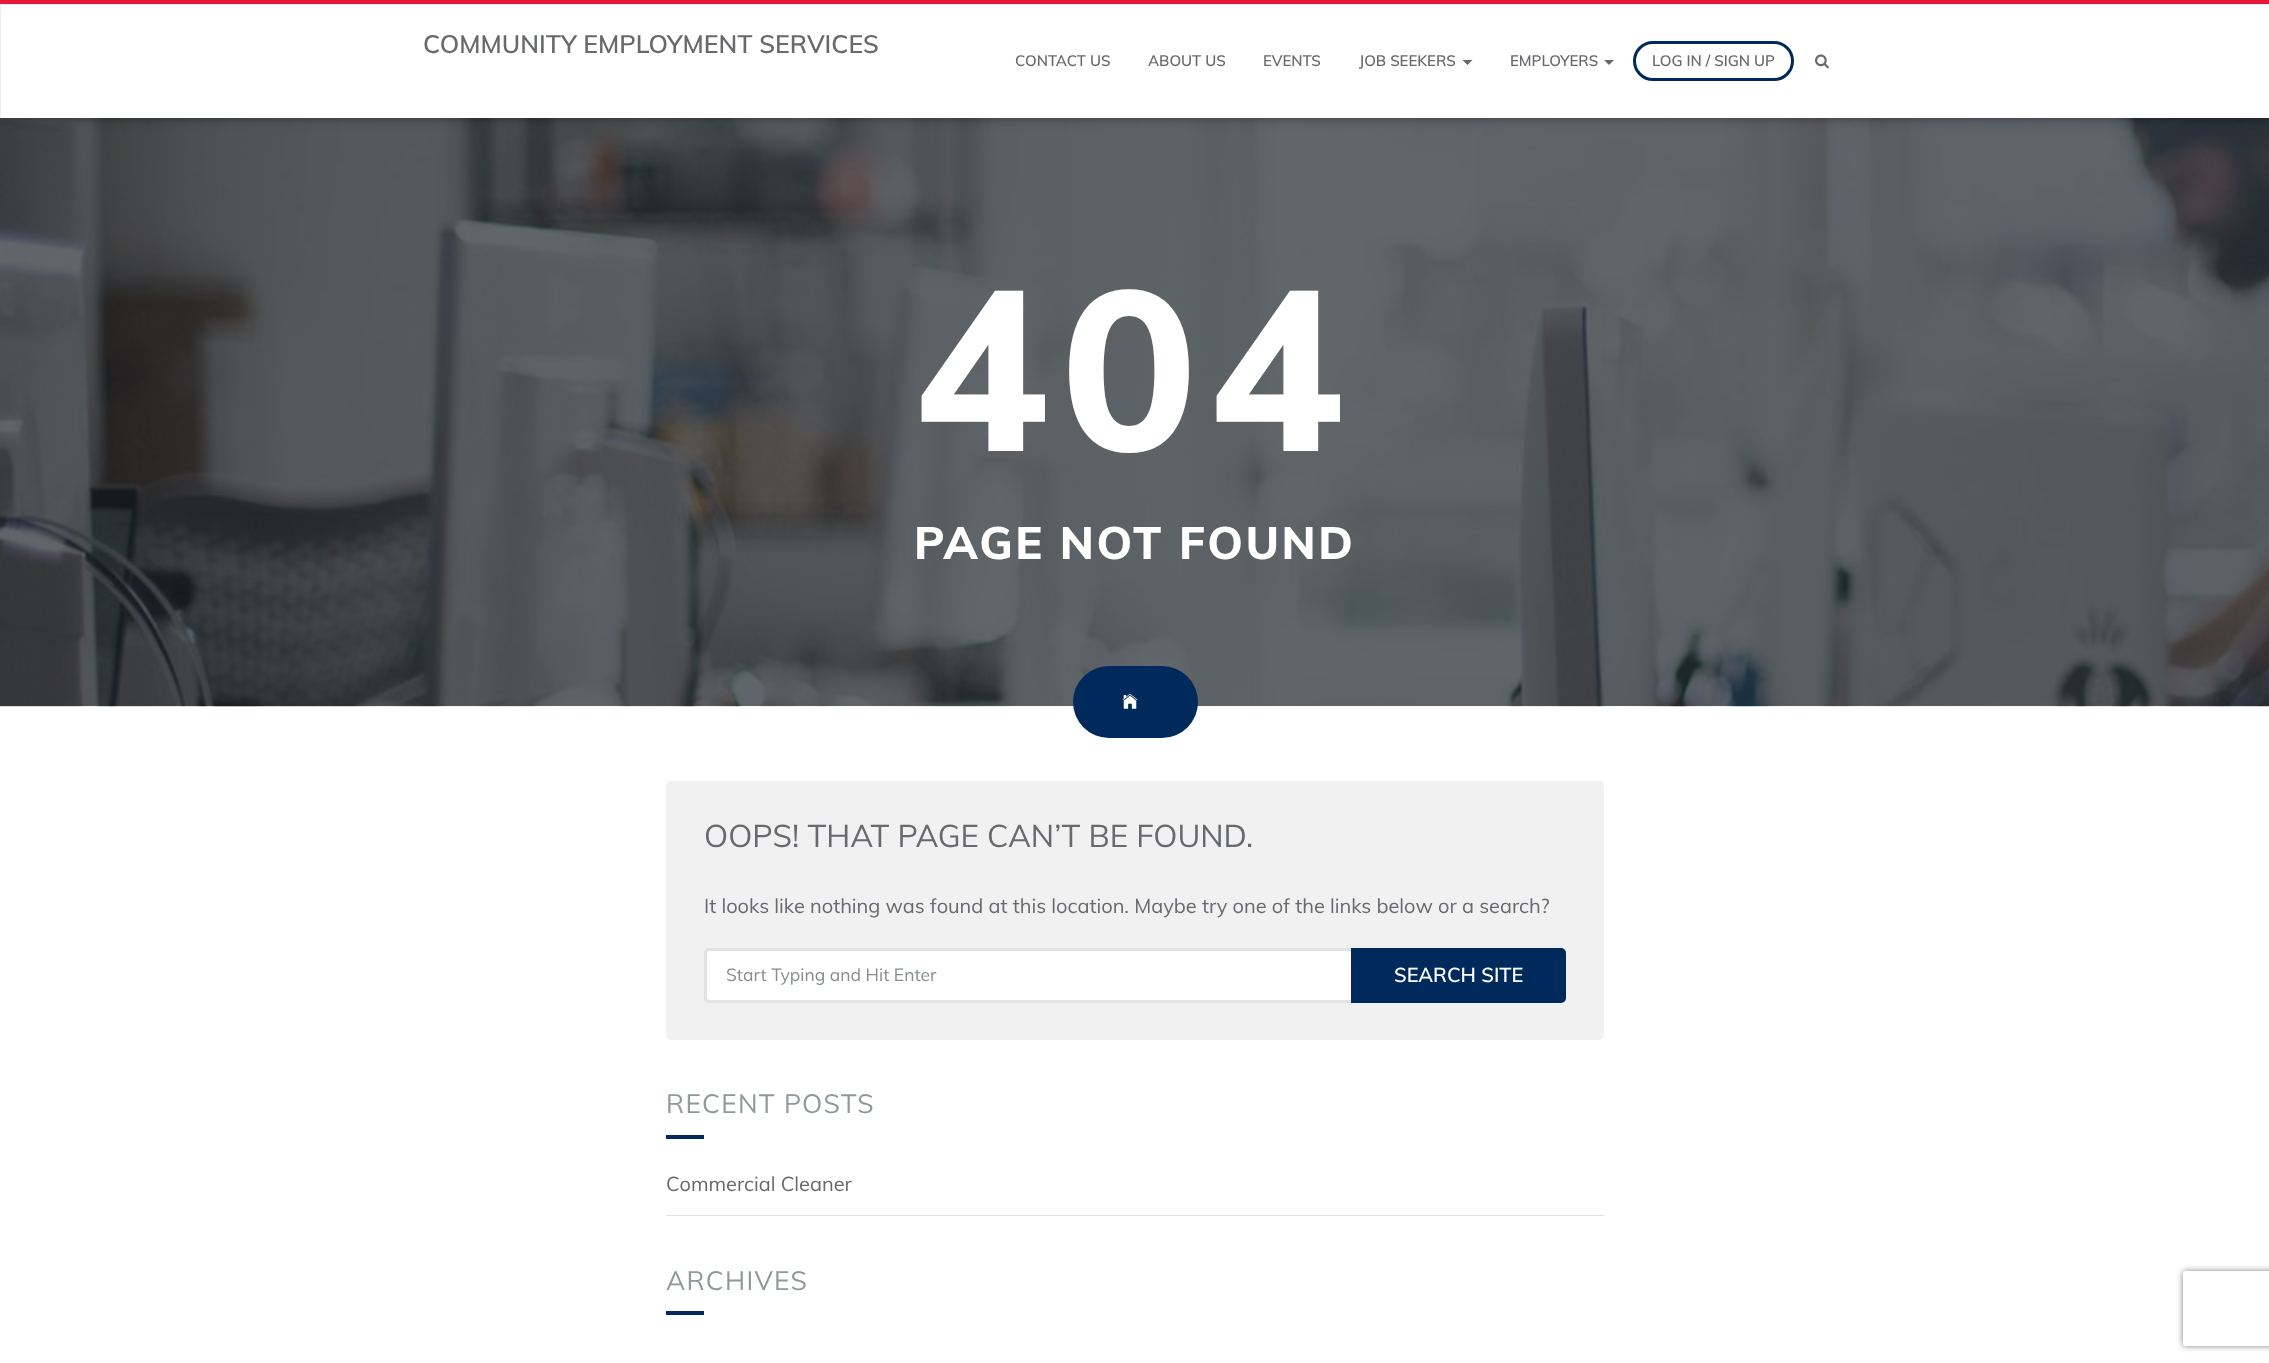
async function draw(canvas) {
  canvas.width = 2269;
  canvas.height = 1363;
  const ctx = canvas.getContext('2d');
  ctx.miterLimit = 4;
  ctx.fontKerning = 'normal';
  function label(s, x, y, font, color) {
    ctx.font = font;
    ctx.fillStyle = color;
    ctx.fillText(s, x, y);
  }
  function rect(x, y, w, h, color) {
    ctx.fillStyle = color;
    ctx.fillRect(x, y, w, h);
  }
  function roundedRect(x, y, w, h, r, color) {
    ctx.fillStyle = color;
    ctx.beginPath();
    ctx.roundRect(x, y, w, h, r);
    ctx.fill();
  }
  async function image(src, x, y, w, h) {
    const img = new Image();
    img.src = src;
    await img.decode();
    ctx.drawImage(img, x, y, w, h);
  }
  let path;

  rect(0, 0, 2269, 1363, '#fff');
  await image('assets/img2.png', 0, 118, 2269, 589);
  ctx.fillStyle = '#0000001f';
  ctx.filter = 'blur(6px)';
  ctx.beginPath();
  ctx.rect(0, 3, 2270, 117);
  ctx.fill();
  ctx.filter = 'none';
  ctx.fillStyle = '#00000029';
  ctx.filter = 'blur(3px)';
  ctx.beginPath();
  ctx.rect(0, 3, 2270, 117);
  ctx.fill();
  ctx.filter = 'none';
  rect(0, 0, 2269, 4, '#e51937');
  rect(1, 5, 2268, 113, '#fff');
  rect(0, 4, 2269, 1, '#eee');
  rect(0, 4, 1, 114, '#eee');
  label('COMMUNITY EMPLOYMENT SERVICES', 423, 53, '600 25px Muli', '#67696d');
  label('CONTACT US', 1015, 66, '600 15px Muli', '#67696d');
  label('ABOUT US', 1148, 66, '600 15px Muli', '#67696d');
  label('EVENTS', 1263, 66, '600 15px Muli', '#67696d');
  label('JOB SEEKERS', 1359, 66, '600 15px Muli', '#67696d');
  path = new Path2D('M1462.5 60H1472.5L1467.5 65Z');
  ctx.fill(path);
  label('EMPLOYERS', 1510, 66, '600 15px Muli', '#67696d');
  path = new Path2D('M1604 60H1614L1609 65Z');
  ctx.fill(path);
  ctx.beginPath();
  ctx.roundRect(1634.5, 42.5, 158, 37, 18.5);
  ctx.strokeStyle = '#002a5c';
  ctx.lineWidth = 3;
  ctx.stroke();
  label('LOG IN / SIGN UP', 1652, 66, '600 15px Muli', '#67696d');
  await image('assets/img1.png', 1815, 54, 14, 15);
  ctx.letterSpacing = '12.5px';
  label('404', 914, 451, '800 225px Muli', '#fff');
  ctx.letterSpacing = '2.5px';
  label('PAGE NOT FOUND', 914, 559, '800 45px Muli', '#fff');
  roundedRect(1073, 666, 125, 72, 36, '#002a5c');
  await image('assets/img3.png', 1122, 693, 16, 16);
  roundedRect(666, 781, 938, 259, 5, '#f1f1f1');
  ctx.letterSpacing = '0px';
  label('OOPS! THAT PAGE CAN’T BE FOUND.', 704, 847, '31.25px Muli', '#67696d');
  label('It looks like nothing was found at this location. Maybe try one of the links below or a search?', 704, 913, '20px Muli', '#67696d');
  ctx.fillStyle = '#fff';
  ctx.beginPath();
  ctx.roundRect(705.5, 949.5, 731, 52, 3.5);
  ctx.fill();
  ctx.strokeStyle = '#e2e2e2';
  ctx.stroke();
  label('Start Typing and Hit Enter', 726, 981, '17.5px Muli', '#868c8e');
  ctx.fillStyle = '#002a5c';
  ctx.beginPath();
  ctx.roundRect(1351, 948, 215, 55, [0, 5, 5, 0]);
  ctx.fill();
  label('SEARCH SITE', 1394, 982, '600 20px Muli', '#fff');
  ctx.letterSpacing = '1.25px';
  label('RECENT POSTS', 666, 1113, '26.25px Muli', '#91989a');
  rect(666, 1135, 38, 4, '#002a5c');
  rect(666, 1215, 938, 1, '#e2e2e2');
  ctx.letterSpacing = '0px';
  label('Commercial Cleaner', 666, 1191, '20px Muli', '#67696d');
  ctx.letterSpacing = '1.25px';
  label('ARCHIVES', 666, 1290, '26.25px Muli', '#91989a');
  rect(666, 1311, 38, 4, '#002a5c');
  ctx.save();
  path = new Path2D('M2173 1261H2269V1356H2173ZM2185.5 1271H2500.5C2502 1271 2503 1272 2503 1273.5V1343.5C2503 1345 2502 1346 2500.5 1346H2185.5C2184 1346 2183 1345 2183 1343.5V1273.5C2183 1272 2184 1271 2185.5 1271Z');
  ctx.clip(path, 'evenodd');
  ctx.fillStyle = '#808080';
  ctx.filter = 'blur(3px)';
  ctx.beginPath();
  ctx.roundRect(2183, 1271, 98, 75, 2.5);
  ctx.fill();
  ctx.filter = 'none';
  ctx.restore();
}

draw(document.querySelector('canvas'));
